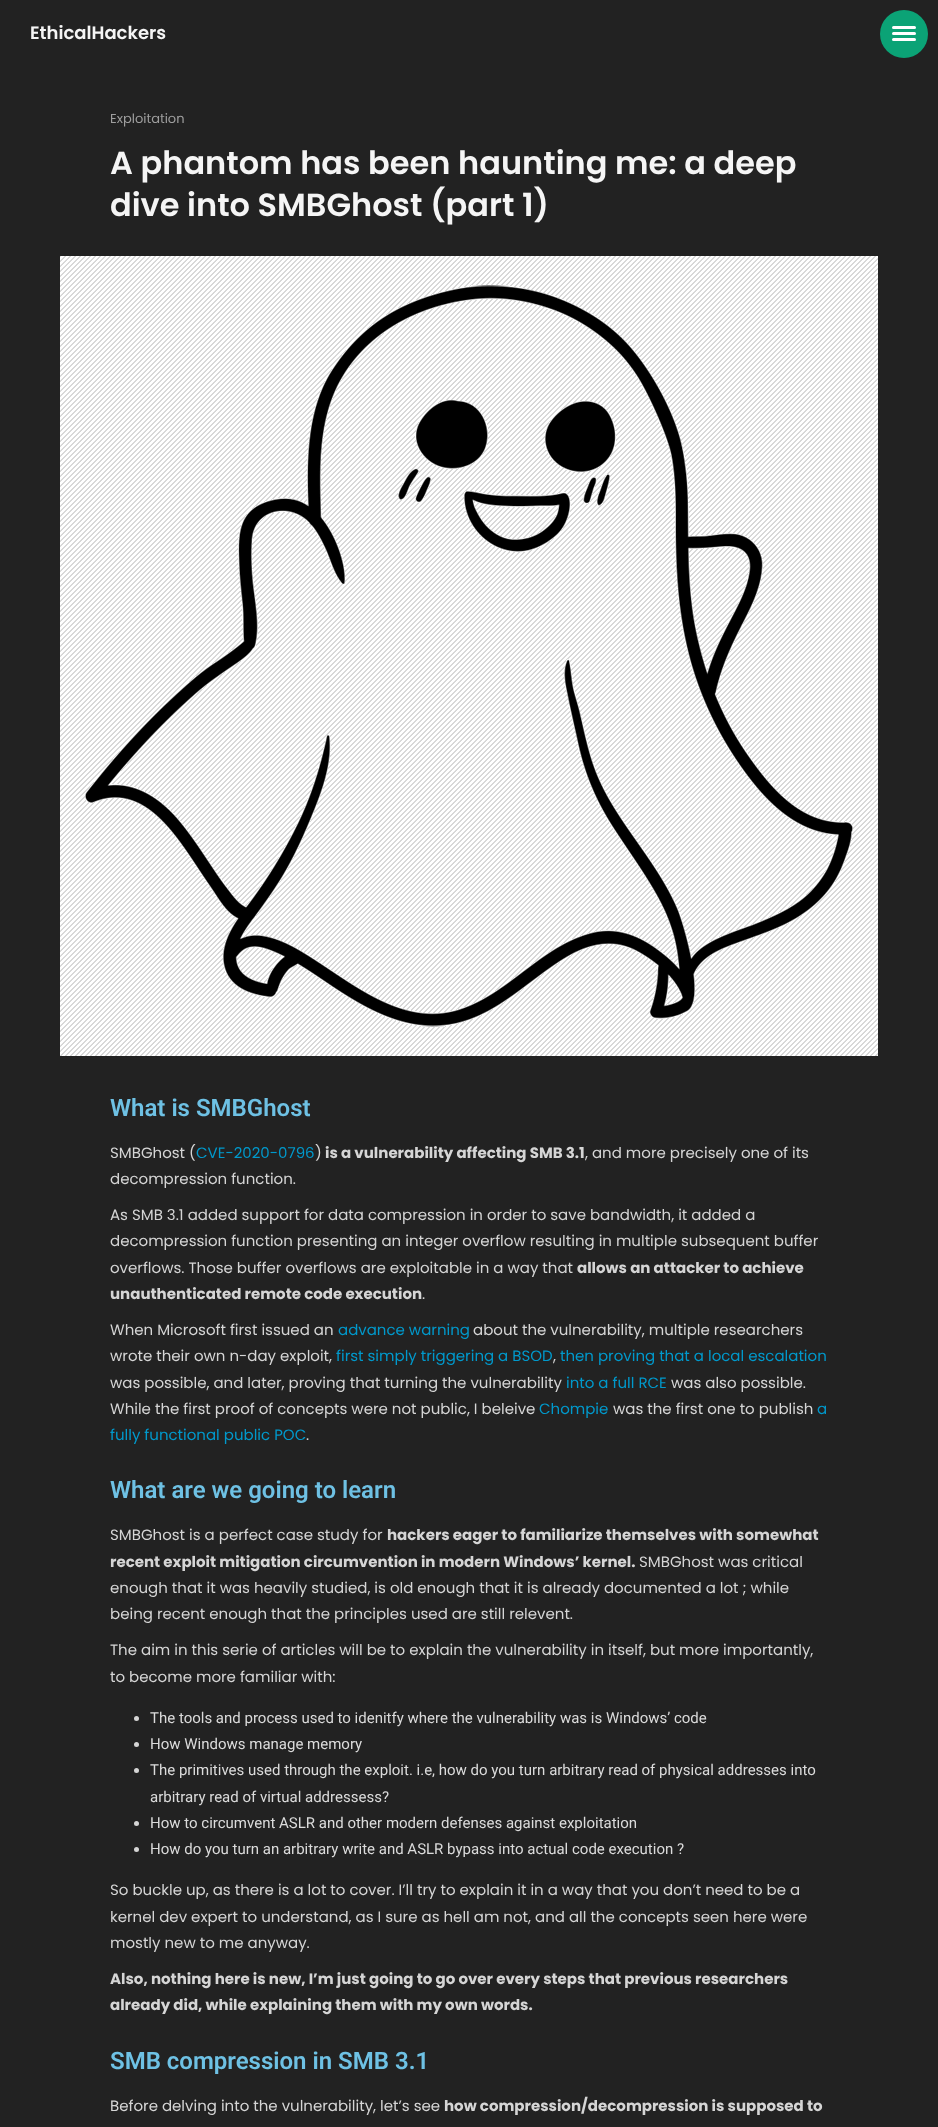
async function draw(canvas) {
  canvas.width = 938;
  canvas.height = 2127;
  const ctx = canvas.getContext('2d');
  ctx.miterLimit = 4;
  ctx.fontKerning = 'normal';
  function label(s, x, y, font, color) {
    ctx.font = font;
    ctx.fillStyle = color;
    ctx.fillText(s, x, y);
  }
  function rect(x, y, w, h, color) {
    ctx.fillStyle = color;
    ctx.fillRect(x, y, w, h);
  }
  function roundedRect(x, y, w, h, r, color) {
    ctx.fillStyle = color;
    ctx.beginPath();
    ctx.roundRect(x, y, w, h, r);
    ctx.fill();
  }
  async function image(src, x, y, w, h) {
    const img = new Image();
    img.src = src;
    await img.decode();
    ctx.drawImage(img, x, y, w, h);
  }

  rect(0, 0, 938, 2127, '#222');
  label('EthicalHackers', 30, 39, '600 18px Poppins', '#f5f5f5');
  ctx.fillStyle = '#0ba376';
  ctx.beginPath();
  ctx.arc(904, 34, 24, 0, 2 * Math.PI);
  ctx.fill();
  roundedRect(892, 26, 24, 3, 1.5, '#fff');
  roundedRect(892, 32, 24, 3, 1.5, '#fff');
  roundedRect(892, 38, 24, 3, 1.5, '#fff');
  label('Exploitation', 110, 123, '13px Poppins', '#9e9e9e');
  label('A phantom has been haunting me: a deep', 110, 174, '600 32px Poppins', '#f5f5f5');
  label('dive into SMBGhost (part 1)', 110, 216, '600 32px Poppins', '#f5f5f5');
  rect(60, 256, 818, 800, '#b2b2b2');
  await image('assets/img1.png', 60, 256, 818, 800);
  await image('assets/img2.png', 85, 285, 768, 742);
  label('What is SMBGhost', 110, 1116, '600 24px Roboto', '#6ec1e4');
  label('SMBGhost (', 110, 1158, '15px Poppins', '#d5d5d5');
  label('CVE-2020-0796', 196, 1158, '15px Poppins', '#09c');
  label(')', 315, 1158, '15px Poppins', '#d5d5d5');
  label('is a vulnerability affecting SMB 3.1', 325, 1158, 'bold 15px Poppins', '#d5d5d5');
  label(', and more precisely one of its', 585, 1158, '15px Poppins', '#d5d5d5');
  label('decompression function.', 110, 1184, '15px Poppins', '#d5d5d5');
  label('As SMB 3.1 added support for data compression in order to save bandwidth, it added a', 110, 1220, '15px Poppins', '#d5d5d5');
  label('decompression function presenting an integer overflow resulting in multiple subsequent buffer', 110, 1246, '15px Poppins', '#d5d5d5');
  label('overflows. Those buffer overflows are exploitable in a way that', 110, 1273, '15px Poppins', '#d5d5d5');
  label('allows an attacker to achieve', 577, 1273, 'bold 15px Poppins', '#d5d5d5');
  label('unauthenticated remote code execution', 110, 1299, 'bold 15px Poppins', '#d5d5d5');
  label('.', 422, 1299, '15px Poppins', '#d5d5d5');
  label('When Microsoft first issued an', 110, 1335, '15px Poppins', '#d5d5d5');
  label('advance warning', 338, 1335, '15px Poppins', '#09c');
  label('about the vulnerability, multiple researchers', 473, 1335, '15px Poppins', '#d5d5d5');
  label('wrote their own n-day exploit,', 110, 1361, '15px Poppins', '#d5d5d5');
  label('first simply triggering a BSOD', 336, 1361, '15px Poppins', '#09c');
  label(',', 553, 1361, '15px Poppins', '#d5d5d5');
  label('then proving that a local escalation', 560, 1361, '15px Poppins', '#09c');
  label('was possible, and later, proving that turning the vulnerability', 110, 1388, '15px Poppins', '#d5d5d5');
  label('into a full RCE', 566, 1388, '15px Poppins', '#09c');
  label('was also possible.', 671, 1388, '15px Poppins', '#d5d5d5');
  label('While the first proof of concepts were not public, I beleive', 110, 1414, '15px Poppins', '#d5d5d5');
  label('Chompie', 539, 1414, '15px Poppins', '#09c');
  label('was the first one to publish', 613, 1414, '15px Poppins', '#d5d5d5');
  label('a', 817, 1414, '15px Poppins', '#09c');
  label('fully functional public POC', 110, 1440, '15px Poppins', '#09c');
  label('.', 306, 1440, '15px Poppins', '#d5d5d5');
  label('What are we going to learn', 110, 1498, '600 24px Roboto', '#6ec1e4');
  label('SMBGhost is a perfect case study for', 110, 1540, '15px Poppins', '#d5d5d5');
  label('hackers eager to familiarize themselves with somewhat', 387, 1540, 'bold 15px Poppins', '#d5d5d5');
  label('recent exploit mitigation circumvention in modern Windows’ kernel.', 110, 1567, 'bold 15px Poppins', '#d5d5d5');
  label('SMBGhost was critical', 639, 1567, '15px Poppins', '#d5d5d5');
  label('enough that it was heavily studied, is old enough that it is already documented a lot ; while', 110, 1593, '15px Poppins', '#d5d5d5');
  label('being recent enough that the principles used are still relevent.', 110, 1619, '15px Poppins', '#d5d5d5');
  label('The aim in this serie of articles will be to explain the vulnerability in itself, but more importantly,', 110, 1655, '15px Poppins', '#d5d5d5');
  label('to become more familiar with:', 110, 1682, '15px Poppins', '#d5d5d5');
  ctx.beginPath();
  ctx.arc(136.5, 1718.5, 2.5, 0, 2 * Math.PI);
  ctx.fill();
  label('The tools and process used to idenitfy where the vulnerability was is Windows’ code', 150, 1723, '15px Roboto', '#dbdbdb');
  ctx.fillStyle = '#d5d5d5';
  ctx.beginPath();
  ctx.arc(136.5, 1744.5, 2.5, 0, 2 * Math.PI);
  ctx.fill();
  label('How Windows manage memory', 150, 1749, '15px Roboto', '#dbdbdb');
  ctx.fillStyle = '#d5d5d5';
  ctx.beginPath();
  ctx.arc(136.5, 1770.5, 2.5, 0, 2 * Math.PI);
  ctx.fill();
  label('The primitives used through the exploit. i.e, how do you turn arbitrary read of physical addresses into', 150, 1775, '15px Roboto', '#dbdbdb');
  label('arbitrary read of virtual addressess?', 150, 1802, '15px Roboto', '#dbdbdb');
  ctx.fillStyle = '#d5d5d5';
  ctx.beginPath();
  ctx.arc(136.5, 1823.5, 2.5, 0, 2 * Math.PI);
  ctx.fill();
  label('How to circumvent ASLR and other modern defenses against exploitation', 150, 1828, '15px Roboto', '#dbdbdb');
  ctx.fillStyle = '#d5d5d5';
  ctx.beginPath();
  ctx.arc(136.5, 1849.5, 2.5, 0, 2 * Math.PI);
  ctx.fill();
  label('How do you turn an arbitrary write and ASLR bypass into actual code execution ?', 150, 1854, '15px Roboto', '#dbdbdb');
  label('So buckle up, as there is a lot to cover. I’ll try to explain it in a way that you don’t need to be a', 110, 1895, '15px Poppins', '#d5d5d5');
  label('kernel dev expert to understand, as I sure as hell am not, and all the concepts seen here were', 110, 1922, '15px Poppins', '#d5d5d5');
  label('mostly new to me anyway.', 110, 1948, '15px Poppins', '#d5d5d5');
  label('Also, nothing here is new, I’m just going to go over every steps that previous researchers', 110, 1984, 'bold 15px Poppins', '#d5d5d5');
  label('already did, while explaining them with my own words.', 110, 2010, 'bold 15px Poppins', '#d5d5d5');
  label('SMB compression in SMB 3.1', 110, 2069, '600 24px Roboto', '#6ec1e4');
  label('Before delving into the vulnerability, let’s see', 110, 2111, '15px Poppins', '#d5d5d5');
  label('how compression/decompression is supposed to', 444, 2111, 'bold 15px Poppins', '#d5d5d5');
}

draw(document.querySelector('canvas'));
